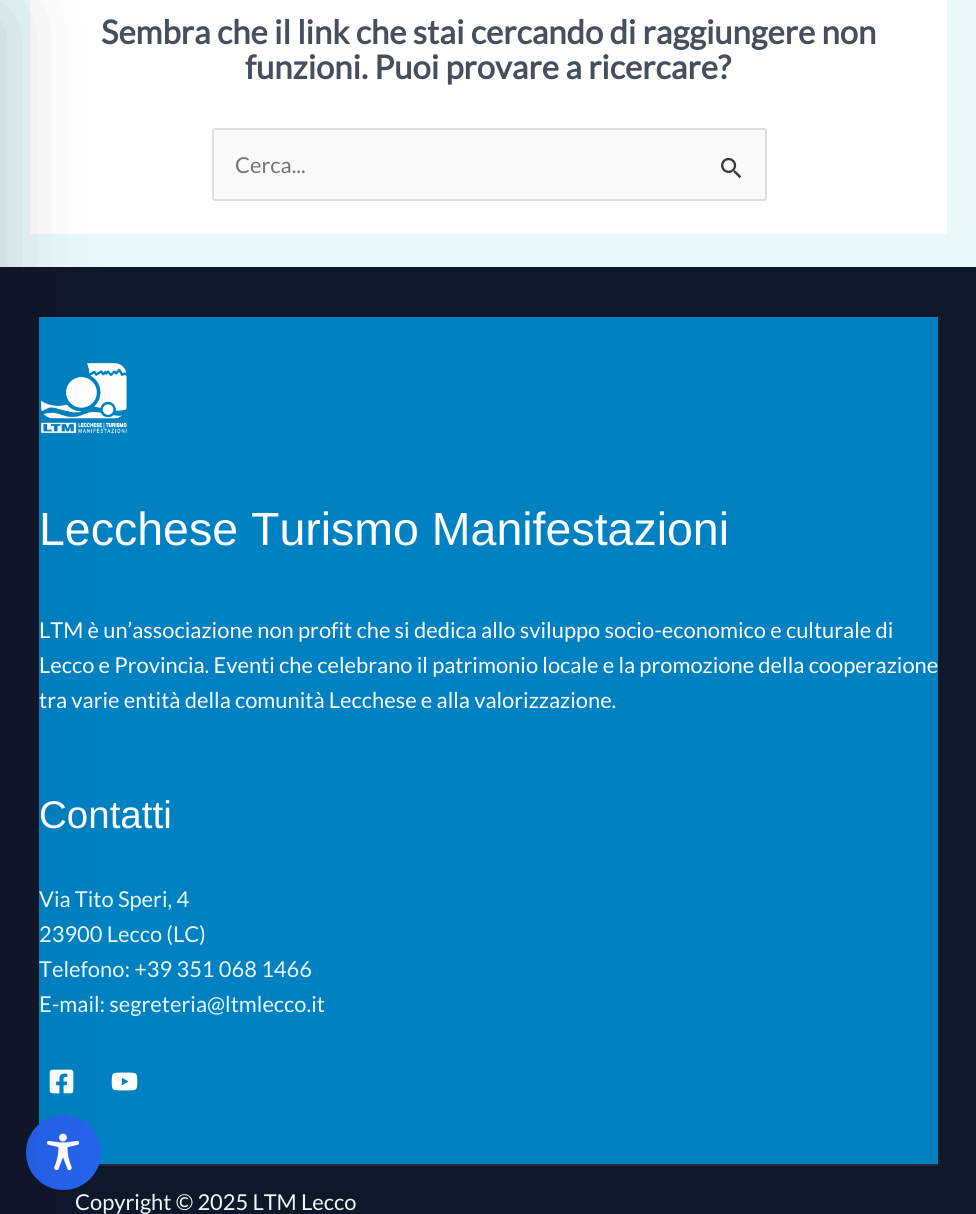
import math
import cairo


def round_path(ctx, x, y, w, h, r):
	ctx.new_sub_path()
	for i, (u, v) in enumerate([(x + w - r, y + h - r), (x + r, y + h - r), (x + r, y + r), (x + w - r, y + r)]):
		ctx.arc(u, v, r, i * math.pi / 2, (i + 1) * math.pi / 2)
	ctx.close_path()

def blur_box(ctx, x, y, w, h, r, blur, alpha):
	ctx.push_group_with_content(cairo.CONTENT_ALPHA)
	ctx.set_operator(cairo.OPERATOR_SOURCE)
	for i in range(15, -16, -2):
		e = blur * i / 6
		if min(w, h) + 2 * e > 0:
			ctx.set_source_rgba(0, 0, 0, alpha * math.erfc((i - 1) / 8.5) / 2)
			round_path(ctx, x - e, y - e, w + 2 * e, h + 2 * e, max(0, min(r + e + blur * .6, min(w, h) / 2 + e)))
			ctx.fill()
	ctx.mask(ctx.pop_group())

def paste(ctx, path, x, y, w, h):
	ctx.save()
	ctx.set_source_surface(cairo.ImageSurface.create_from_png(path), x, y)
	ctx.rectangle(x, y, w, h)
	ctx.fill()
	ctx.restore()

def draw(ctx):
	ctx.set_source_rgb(0.914, 0.973, 0.976)
	ctx.paint()
	ctx.set_source_rgb(1, 1, 1)
	ctx.rectangle(30, 0, 917, 234)
	ctx.fill()
	ctx.set_source_rgb(0.059, 0.09, 0.165)
	ctx.rectangle(0, 267, 976, 947)
	ctx.fill()
	ctx.set_source_rgb(0, 0.506, 0.761)
	ctx.rectangle(39, 317, 899, 847)
	ctx.fill()
	paste(ctx, 'media/2.png', 41, 363, 86, 71)
	paste(ctx, 'media/3.png', 49, 1069, 25, 25)
	paste(ctx, 'media/4.png', 111, 1072, 27, 19)
	ctx.set_source_rgb(0.133, 0.165, 0.231)
	ctx.rectangle(98, 1164, 840, 2)
	ctx.fill()
	ctx.set_source_rgb(0.145, 0.388, 0.922)
	ctx.arc(63.5, 1152.5, 37.5, 0, 2 * math.pi)
	ctx.fill()
	paste(ctx, 'media/5.png', 46, 1133, 34, 38)
	ctx.set_source_rgb(0, 0, 0)
	blur_box(ctx, -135, 15, 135, 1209, 0, 45, 0.2)
	ctx.select_font_face('Lato', cairo.FONT_SLANT_NORMAL, cairo.FONT_WEIGHT_BOLD)
	ctx.set_font_size(32.8)
	ctx.set_source_rgb(0.271, 0.31, 0.369)
	ctx.move_to(101, 44)
	ctx.show_text('Sembra che il link che stai cercando di raggiungere non')
	ctx.move_to(245, 79)
	ctx.show_text('funzioni. Puoi provare a ricercare?')
	ctx.set_source_rgb(0.98, 0.98, 0.98)
	round_path(ctx, 213, 129, 553, 71, 2)
	ctx.fill_preserve()
	ctx.set_source_rgb(0.867, 0.867, 0.867)
	ctx.stroke()
	ctx.save()
	ctx.rectangle(236, 152, 456, 25)
	ctx.clip()
	ctx.select_font_face('Lato')
	ctx.set_font_size(21.9)
	ctx.set_source_rgb(0.459, 0.459, 0.459)
	ctx.move_to(235, 173)
	ctx.show_text('Cerca...')
	ctx.restore()
	paste(ctx, 'media/1.png', 721, 157, 20, 22)
	ctx.select_font_face('Liberation Sans')
	ctx.set_font_size(46.5)
	ctx.set_source_rgb(1, 1, 1)
	ctx.move_to(39, 545)
	ctx.show_text('Lecchese Turismo Manifestazioni')
	ctx.select_font_face('Lato')
	ctx.set_font_size(21.9)
	for x, y, s in [
		(39, 638, 'LTM è un’associazione non profit che si dedica allo sviluppo socio-economico e culturale di'),
		(39, 673, 'Lecco e Provincia. Eventi che celebrano il patrimonio locale e la promozione della cooperazione'),
		(39, 708, 'tra varie entità della comunità Lecchese e alla valorizzazione.'),
	]:
		ctx.move_to(x, y)
		ctx.show_text(s)
	ctx.select_font_face('Liberation Sans')
	ctx.set_font_size(38.5)
	ctx.move_to(39, 828)
	ctx.show_text('Contatti')
	ctx.select_font_face('Lato')
	ctx.set_font_size(21.9)
	ctx.set_source_rgb(0.914, 0.973, 0.976)
	for x, y, s in [
		(39, 907, 'Via Tito Speri, 4'),
		(39, 942, '23900 Lecco (LC)'),
		(39, 977, 'Telefono: +39 351 068 1466'),
		(39, 1012, 'E-mail: segreteria@ltmlecco.it'),
		(75, 1210, 'Copyright © 2025 LTM Lecco'),
	]:
		ctx.move_to(x, y)
		ctx.show_text(s)


surface = cairo.ImageSurface(cairo.FORMAT_RGB24, 976, 1214)
ctx = cairo.Context(surface)
options = cairo.FontOptions()
options.set_hint_metrics(cairo.HINT_METRICS_OFF)
options.set_hint_style(cairo.HINT_STYLE_NONE)
ctx.set_font_options(options)
ctx.set_miter_limit(4)
draw(ctx)
surface.write_to_png('image.png')
